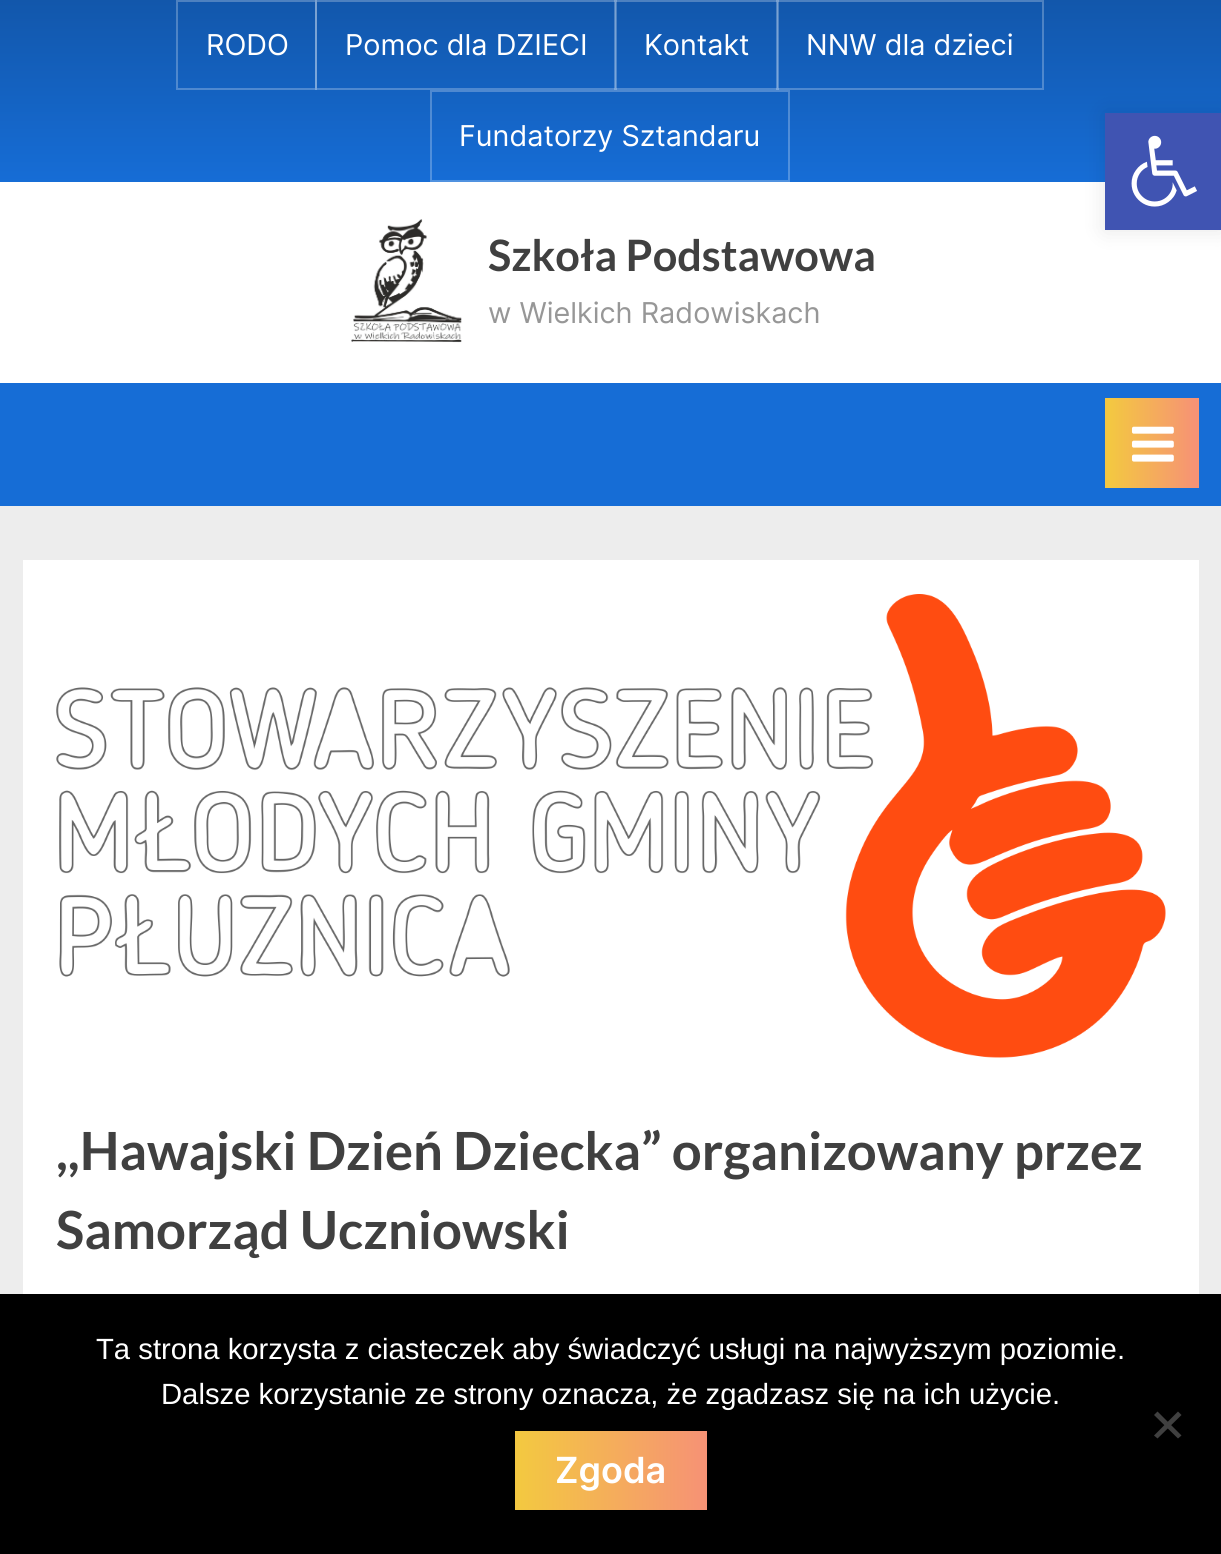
import math
import cairo


def round_path(ctx, x, y, w, h, r):
	ctx.new_sub_path()
	for i, (u, v) in enumerate([(x + w - r, y + h - r), (x + r, y + h - r), (x + r, y + r), (x + w - r, y + r)]):
		ctx.arc(u, v, r, i * math.pi / 2, (i + 1) * math.pi / 2)
	ctx.close_path()

def blur_box(ctx, x, y, w, h, r, blur, alpha):
	ctx.push_group_with_content(cairo.CONTENT_ALPHA)
	ctx.set_operator(cairo.OPERATOR_SOURCE)
	for i in range(15, -16, -2):
		e = blur * i / 6
		if min(w, h) + 2 * e > 0:
			ctx.set_source_rgba(0, 0, 0, alpha * math.erfc((i - 1) / 8.5) / 2)
			round_path(ctx, x - e, y - e, w + 2 * e, h + 2 * e, max(0, min(r + e + blur * .6, min(w, h) / 2 + e)))
			ctx.fill()
	ctx.mask(ctx.pop_group())

def paste(ctx, path, x, y, w, h):
	ctx.save()
	ctx.set_source_surface(cairo.ImageSurface.create_from_png(path), x, y)
	ctx.rectangle(x, y, w, h)
	ctx.fill()
	ctx.restore()

def draw(ctx):
	ctx.set_source_rgb(0.929, 0.929, 0.929)
	ctx.paint()
	gradient = cairo.LinearGradient(611, 182, 611, 0)
	gradient.add_color_stop_rgba(0, 0.086, 0.427, 0.839, 1)
	gradient.add_color_stop_rgba(1, 0.071, 0.341, 0.671, 1)
	ctx.set_source(gradient)
	ctx.rectangle(0, 0, 1221, 182)
	ctx.fill()
	ctx.rectangle(177, 1, 139, 88)
	ctx.set_source_rgba(1, 1, 1, 0.25)
	ctx.stroke()
	ctx.select_font_face('Inter')
	ctx.set_font_size(28.75)
	ctx.set_source_rgb(1, 1, 1)
	ctx.move_to(206, 55)
	ctx.show_text('RODO')
	ctx.rectangle(316, 1, 300, 88)
	ctx.set_source_rgba(1, 1, 1, 0.25)
	ctx.stroke()
	ctx.set_source_rgb(1, 1, 1)
	ctx.move_to(345, 55)
	ctx.show_text('Pomoc dla DZIECI')
	ctx.rectangle(615, 1, 163, 88)
	ctx.set_source_rgba(1, 1, 1, 0.25)
	ctx.stroke()
	ctx.set_source_rgb(1, 1, 1)
	ctx.move_to(644, 55)
	ctx.show_text('Kontakt')
	ctx.rectangle(777, 1, 266, 88)
	ctx.set_source_rgba(1, 1, 1, 0.25)
	ctx.stroke()
	ctx.set_source_rgb(1, 1, 1)
	ctx.move_to(806, 55)
	ctx.show_text('NNW dla dzieci')
	ctx.rectangle(431, 91, 358, 90)
	ctx.set_source_rgba(1, 1, 1, 0.25)
	ctx.stroke()
	ctx.set_source_rgb(1, 1, 1)
	ctx.move_to(459, 146)
	ctx.show_text('Fundatorzy Sztandaru')
	ctx.rectangle(0, 182, 1221, 201)
	ctx.fill()
	paste(ctx, 'media/1.png', 351, 219, 111, 124)
	ctx.select_font_face('Lato', cairo.FONT_SLANT_NORMAL, cairo.FONT_WEIGHT_BOLD)
	ctx.set_font_size(43.25)
	ctx.set_source_rgb(0.251, 0.251, 0.251)
	ctx.move_to(488, 271)
	ctx.show_text('Szkoła Podstawowa')
	ctx.select_font_face('Inter')
	ctx.set_font_size(28.75)
	ctx.set_source_rgb(0.592, 0.592, 0.592)
	ctx.move_to(488, 323)
	ctx.show_text('w Wielkich Radowiskach')
	ctx.set_source_rgb(0.086, 0.427, 0.839)
	ctx.rectangle(0, 383, 1221, 123)
	ctx.fill()
	gradient = cairo.LinearGradient(938, 443, 1109, 443)
	gradient.add_color_stop_rgba(0, 0.953, 0.784, 0.255, 1)
	gradient.add_color_stop_rgba(0.51, 0.965, 0.573, 0.459, 1)
	gradient.add_color_stop_rgba(1, 0.953, 0.784, 0.255, 1)
	ctx.set_source(gradient)
	ctx.rectangle(1105, 398, 4, 90)
	ctx.fill()
	gradient = cairo.LinearGradient(1109, 443, 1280, 443)
	gradient.add_color_stop_rgba(0, 0.953, 0.784, 0.255, 1)
	gradient.add_color_stop_rgba(0.51, 0.965, 0.573, 0.459, 1)
	gradient.add_color_stop_rgba(1, 0.953, 0.784, 0.255, 1)
	ctx.set_source(gradient)
	ctx.rectangle(1109, 398, 90, 90)
	ctx.fill()
	paste(ctx, 'media/2.png', 1131, 426, 43, 36)
	ctx.set_source_rgb(1, 1, 1)
	ctx.rectangle(23, 560, 1176, 734)
	ctx.fill()
	paste(ctx, 'media/3.png', 56, 594, 1110, 464)
	ctx.select_font_face('Lato', cairo.FONT_SLANT_NORMAL, cairo.FONT_WEIGHT_BOLD)
	ctx.set_font_size(52.6)
	ctx.set_source_rgb(0.251, 0.251, 0.251)
	ctx.move_to(56, 1170)
	ctx.show_text(',,Hawajski Dzień Dziecka” organizowany przez')
	ctx.move_to(56, 1249)
	ctx.show_text('Samorząd Uczniowski')
	ctx.set_source_rgb(0, 0, 0)
	blur_box(ctx, 1105, 113, 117, 117, 0, 11, 0.1)
	ctx.set_source_rgb(0.251, 0.329, 0.698)
	ctx.rectangle(1105, 113, 116, 117)
	ctx.fill()
	paste(ctx, 'media/4.png', 1131, 135, 66, 72)
	ctx.set_source_rgb(0, 0, 0)
	ctx.rectangle(0, 1294, 1221, 260)
	ctx.fill()
	ctx.select_font_face('Liberation Sans')
	ctx.set_font_size(29.25)
	ctx.set_source_rgb(1, 1, 1)
	ctx.move_to(96, 1359)
	ctx.show_text('Ta strona korzysta z ciasteczek aby świadczyć usługi na najwyższym poziomie.')
	ctx.move_to(161, 1404)
	ctx.show_text('Dalsze korzystanie ze strony oznacza, że zgadzasz się na ich użycie.')
	ctx.set_source_rgb(0.251, 0.251, 0.251)
	ctx.new_path()
	ctx.move_to(1178, 1411.5)
	ctx.line_to(1181.5, 1415)
	ctx.line_to(1157.5, 1438.5)
	ctx.line_to(1154, 1435.5)
	ctx.close_path()
	ctx.fill()
	ctx.new_path()
	ctx.move_to(1154, 1415)
	ctx.line_to(1157.5, 1411.5)
	ctx.line_to(1181.5, 1435.5)
	ctx.line_to(1178, 1438.5)
	ctx.close_path()
	ctx.fill()
	gradient = cairo.LinearGradient(155, 1470, 520, 1470)
	gradient.add_color_stop_rgba(0, 0.953, 0.784, 0.255, 1)
	gradient.add_color_stop_rgba(0.51, 0.965, 0.573, 0.459, 1)
	gradient.add_color_stop_rgba(1, 0.953, 0.784, 0.255, 1)
	ctx.set_source(gradient)
	ctx.rectangle(515, 1431, 5, 79)
	ctx.fill()
	gradient = cairo.LinearGradient(520, 1470, 884, 1470)
	gradient.add_color_stop_rgba(0, 0.953, 0.784, 0.255, 1)
	gradient.add_color_stop_rgba(0.51, 0.965, 0.573, 0.459, 1)
	gradient.add_color_stop_rgba(1, 0.953, 0.784, 0.255, 1)
	ctx.set_source(gradient)
	ctx.rectangle(520, 1431, 187, 79)
	ctx.fill()
	ctx.select_font_face('Inter SemiBold')
	ctx.set_font_size(36)
	ctx.set_source_rgb(1, 1, 1)
	ctx.move_to(555, 1483)
	ctx.show_text('Zgoda')


surface = cairo.ImageSurface(cairo.FORMAT_RGB24, 1221, 1554)
ctx = cairo.Context(surface)
options = cairo.FontOptions()
options.set_hint_metrics(cairo.HINT_METRICS_OFF)
options.set_hint_style(cairo.HINT_STYLE_NONE)
ctx.set_font_options(options)
ctx.set_miter_limit(4)
draw(ctx)
surface.write_to_png('image.png')
